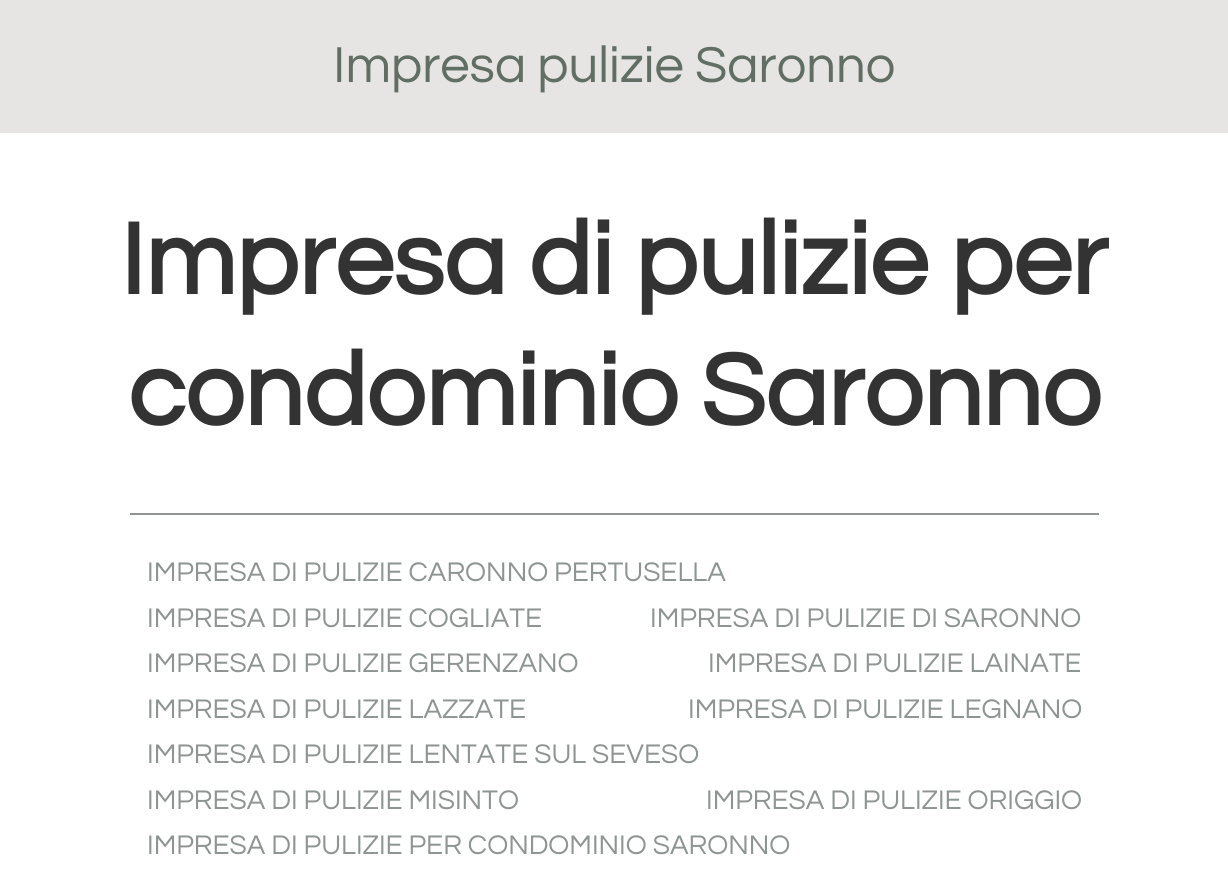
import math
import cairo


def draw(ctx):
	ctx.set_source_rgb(1, 1, 1)
	ctx.paint()
	ctx.set_source_rgb(0.902, 0.898, 0.89)
	ctx.rectangle(0, 0, 1228, 133)
	ctx.fill()
	ctx.select_font_face('Questrial')
	ctx.set_font_size(52.5)
	ctx.set_source_rgb(0.38, 0.431, 0.388)
	ctx.move_to(333, 82)
	ctx.show_text('Impresa pulizie Saronno')
	ctx.select_font_face('Questrial', cairo.FONT_SLANT_NORMAL, cairo.FONT_WEIGHT_BOLD)
	ctx.set_font_size(105)
	ctx.set_source_rgb(0.2, 0.2, 0.2)
	ctx.move_to(120, 294)
	ctx.show_text('Impresa di pulizie per')
	ctx.move_to(128, 425)
	ctx.show_text('condominio Saronno')
	ctx.set_source_rgb(0.557, 0.58, 0.573)
	ctx.rectangle(130, 513, 969, 2)
	ctx.fill()
	ctx.select_font_face('Questrial')
	ctx.set_font_size(28)
	for x, y, s in [
		(147, 581, 'IMPRESA DI PULIZIE CARONNO PERTUSELLA'),
		(147, 627, 'IMPRESA DI PULIZIE COGLIATE'),
		(650, 627, 'IMPRESA DI PULIZIE DI SARONNO'),
		(147, 672, 'IMPRESA DI PULIZIE GERENZANO'),
		(708, 672, 'IMPRESA DI PULIZIE LAINATE'),
		(147, 718, 'IMPRESA DI PULIZIE LAZZATE'),
		(688, 718, 'IMPRESA DI PULIZIE LEGNANO'),
		(147, 763, 'IMPRESA DI PULIZIE LENTATE SUL SEVESO'),
		(147, 809, 'IMPRESA DI PULIZIE MISINTO'),
		(706, 809, 'IMPRESA DI PULIZIE ORIGGIO'),
		(147, 854, 'IMPRESA DI PULIZIE PER CONDOMINIO SARONNO'),
	]:
		ctx.move_to(x, y)
		ctx.show_text(s)


surface = cairo.ImageSurface(cairo.FORMAT_RGB24, 1228, 871)
ctx = cairo.Context(surface)
options = cairo.FontOptions()
options.set_hint_metrics(cairo.HINT_METRICS_OFF)
options.set_hint_style(cairo.HINT_STYLE_NONE)
ctx.set_font_options(options)
ctx.set_miter_limit(4)
draw(ctx)
surface.write_to_png('image.png')
